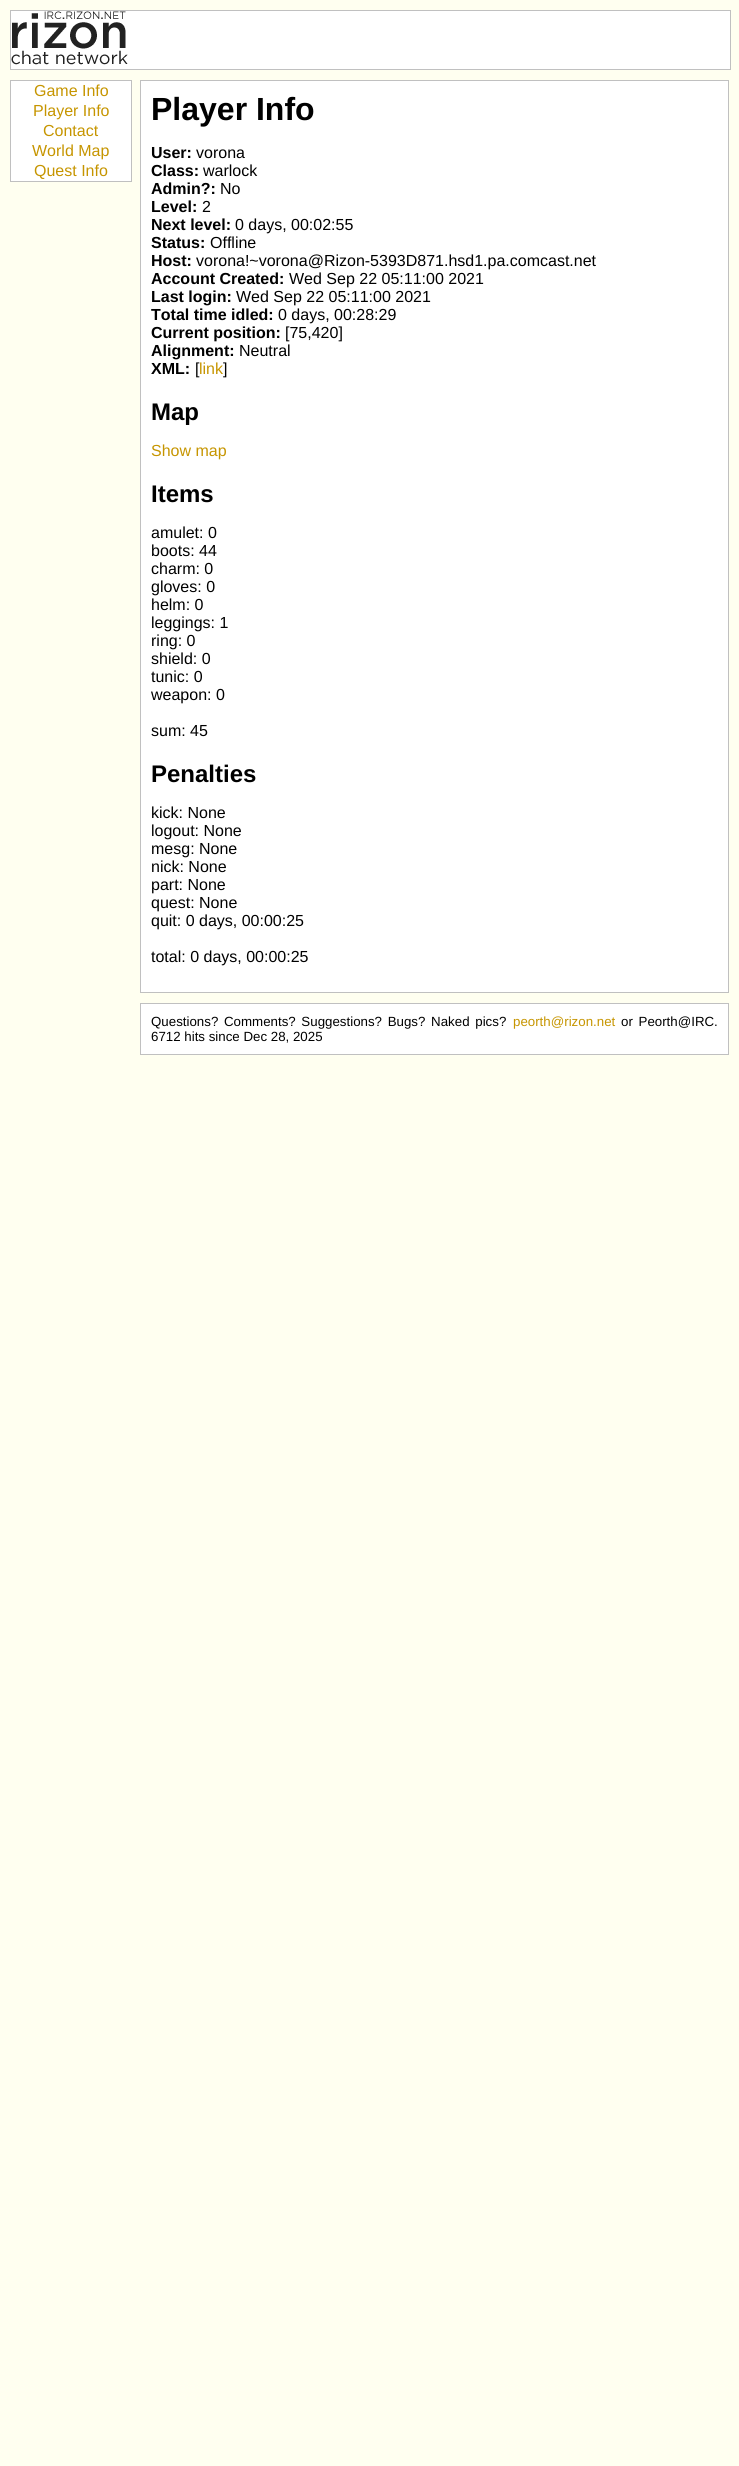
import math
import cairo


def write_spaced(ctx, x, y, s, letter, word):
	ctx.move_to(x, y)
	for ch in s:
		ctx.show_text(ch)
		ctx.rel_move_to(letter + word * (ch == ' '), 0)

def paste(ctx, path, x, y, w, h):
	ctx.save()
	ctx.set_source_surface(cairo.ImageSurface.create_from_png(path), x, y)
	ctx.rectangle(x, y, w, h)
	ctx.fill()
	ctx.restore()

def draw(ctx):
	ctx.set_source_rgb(1, 1, 0.941)
	ctx.paint()
	ctx.set_source_rgb(1, 1, 1)
	ctx.rectangle(10.5, 10.5, 720, 59)
	ctx.fill_preserve()
	ctx.set_source_rgb(0.753, 0.753, 0.753)
	ctx.set_line_width(1)
	ctx.stroke()
	paste(ctx, 'media/1.png', 11, 11, 117, 54)
	ctx.set_source_rgb(1, 1, 1)
	ctx.rectangle(10.5, 80.5, 121, 101)
	ctx.fill_preserve()
	ctx.set_source_rgb(0.753, 0.753, 0.753)
	ctx.stroke()
	ctx.select_font_face('Liberation Sans')
	ctx.set_font_size(16)
	ctx.set_source_rgb(0.776, 0.584, 0)
	for x, y, s in [
		(34, 96, 'Game Info'),
		(33, 116, 'Player Info'),
		(43, 136, 'Contact'),
		(32, 156, 'World Map'),
		(34, 176, 'Quest Info'),
	]:
		ctx.move_to(x, y)
		ctx.show_text(s)
	ctx.set_source_rgb(1, 1, 1)
	ctx.rectangle(140.5, 80.5, 588, 912)
	ctx.fill_preserve()
	ctx.set_source_rgb(0.753, 0.753, 0.753)
	ctx.stroke()
	ctx.select_font_face('Liberation Sans', cairo.FONT_SLANT_NORMAL, cairo.FONT_WEIGHT_BOLD)
	ctx.set_font_size(32)
	ctx.set_source_rgb(0, 0, 0)
	ctx.move_to(151, 120)
	ctx.show_text('Player Info')
	ctx.set_font_size(16)
	ctx.move_to(151, 158)
	ctx.show_text('User:')
	ctx.select_font_face('Liberation Sans')
	ctx.move_to(196, 158)
	ctx.show_text('vorona')
	ctx.select_font_face('Liberation Sans', cairo.FONT_SLANT_NORMAL, cairo.FONT_WEIGHT_BOLD)
	ctx.move_to(151, 176)
	ctx.show_text('Class:')
	ctx.select_font_face('Liberation Sans')
	ctx.move_to(203, 176)
	ctx.show_text('warlock')
	ctx.select_font_face('Liberation Sans', cairo.FONT_SLANT_NORMAL, cairo.FONT_WEIGHT_BOLD)
	ctx.move_to(151, 194)
	ctx.show_text('Admin?:')
	ctx.select_font_face('Liberation Sans')
	ctx.move_to(220, 194)
	ctx.show_text('No')
	ctx.select_font_face('Liberation Sans', cairo.FONT_SLANT_NORMAL, cairo.FONT_WEIGHT_BOLD)
	ctx.move_to(151, 212)
	ctx.show_text('Level:')
	ctx.select_font_face('Liberation Sans')
	ctx.move_to(202, 212)
	ctx.show_text('2')
	ctx.select_font_face('Liberation Sans', cairo.FONT_SLANT_NORMAL, cairo.FONT_WEIGHT_BOLD)
	ctx.move_to(151, 230)
	ctx.show_text('Next level:')
	ctx.select_font_face('Liberation Sans')
	ctx.move_to(235, 230)
	ctx.show_text('0 days, 00:02:55')
	ctx.select_font_face('Liberation Sans', cairo.FONT_SLANT_NORMAL, cairo.FONT_WEIGHT_BOLD)
	ctx.move_to(151, 248)
	ctx.show_text('Status:')
	ctx.select_font_face('Liberation Sans')
	ctx.move_to(210, 248)
	ctx.show_text('Offline')
	ctx.select_font_face('Liberation Sans', cairo.FONT_SLANT_NORMAL, cairo.FONT_WEIGHT_BOLD)
	ctx.move_to(151, 266)
	ctx.show_text('Host:')
	ctx.select_font_face('Liberation Sans')
	ctx.move_to(196, 266)
	ctx.show_text('vorona!~vorona@Rizon-5393D871.hsd1.pa.comcast.net')
	ctx.select_font_face('Liberation Sans', cairo.FONT_SLANT_NORMAL, cairo.FONT_WEIGHT_BOLD)
	ctx.move_to(151, 284)
	ctx.show_text('Account Created:')
	ctx.select_font_face('Liberation Sans')
	ctx.move_to(289, 284)
	ctx.show_text('Wed Sep 22 05:11:00 2021')
	ctx.select_font_face('Liberation Sans', cairo.FONT_SLANT_NORMAL, cairo.FONT_WEIGHT_BOLD)
	ctx.move_to(151, 302)
	ctx.show_text('Last login:')
	ctx.select_font_face('Liberation Sans')
	ctx.move_to(236, 302)
	ctx.show_text('Wed Sep 22 05:11:00 2021')
	ctx.select_font_face('Liberation Sans', cairo.FONT_SLANT_NORMAL, cairo.FONT_WEIGHT_BOLD)
	ctx.move_to(151, 320)
	ctx.show_text('Total time idled:')
	ctx.select_font_face('Liberation Sans')
	ctx.move_to(278, 320)
	ctx.show_text('0 days, 00:28:29')
	ctx.select_font_face('Liberation Sans', cairo.FONT_SLANT_NORMAL, cairo.FONT_WEIGHT_BOLD)
	ctx.move_to(151, 338)
	ctx.show_text('Current position:')
	ctx.select_font_face('Liberation Sans')
	ctx.move_to(285, 338)
	ctx.show_text('[75,420]')
	ctx.select_font_face('Liberation Sans', cairo.FONT_SLANT_NORMAL, cairo.FONT_WEIGHT_BOLD)
	ctx.move_to(151, 356)
	ctx.show_text('Alignment:')
	ctx.select_font_face('Liberation Sans')
	ctx.move_to(239, 356)
	ctx.show_text('Neutral')
	ctx.select_font_face('Liberation Sans', cairo.FONT_SLANT_NORMAL, cairo.FONT_WEIGHT_BOLD)
	ctx.move_to(151, 374)
	ctx.show_text('XML:')
	ctx.select_font_face('Liberation Sans')
	ctx.move_to(195, 374)
	ctx.show_text('[')
	ctx.set_source_rgb(0.776, 0.584, 0)
	ctx.move_to(199, 374)
	ctx.show_text('link')
	ctx.set_source_rgb(0, 0, 0)
	ctx.move_to(223, 374)
	ctx.show_text(']')
	ctx.select_font_face('Liberation Sans', cairo.FONT_SLANT_NORMAL, cairo.FONT_WEIGHT_BOLD)
	ctx.set_font_size(24)
	ctx.move_to(151, 420)
	ctx.show_text('Map')
	ctx.select_font_face('Liberation Sans')
	ctx.set_font_size(16)
	ctx.set_source_rgb(0.776, 0.584, 0)
	ctx.move_to(151, 456)
	ctx.show_text('Show map')
	ctx.select_font_face('Liberation Sans', cairo.FONT_SLANT_NORMAL, cairo.FONT_WEIGHT_BOLD)
	ctx.set_font_size(24)
	ctx.set_source_rgb(0, 0, 0)
	ctx.move_to(151, 502)
	ctx.show_text('Items')
	ctx.select_font_face('Liberation Sans')
	ctx.set_font_size(16)
	for x, y, s in [
		(151, 538, 'amulet: 0'),
		(151, 556, 'boots: 44'),
		(151, 574, 'charm: 0'),
		(151, 592, 'gloves: 0'),
		(151, 610, 'helm: 0'),
		(151, 628, 'leggings: 1'),
		(151, 646, 'ring: 0'),
		(151, 664, 'shield: 0'),
		(151, 682, 'tunic: 0'),
		(151, 700, 'weapon: 0'),
		(151, 736, 'sum: 45'),
	]:
		ctx.move_to(x, y)
		ctx.show_text(s)
	ctx.select_font_face('Liberation Sans', cairo.FONT_SLANT_NORMAL, cairo.FONT_WEIGHT_BOLD)
	ctx.set_font_size(24)
	ctx.move_to(151, 782)
	ctx.show_text('Penalties')
	ctx.select_font_face('Liberation Sans')
	ctx.set_font_size(16)
	for x, y, s in [
		(151, 818, 'kick: None'),
		(151, 836, 'logout: None'),
		(151, 854, 'mesg: None'),
		(151, 872, 'nick: None'),
		(151, 890, 'part: None'),
		(151, 908, 'quest: None'),
		(151, 926, 'quit: 0 days, 00:00:25'),
		(151, 962, 'total: 0 days, 00:00:25'),
	]:
		ctx.move_to(x, y)
		ctx.show_text(s)
	ctx.set_source_rgb(1, 1, 1)
	ctx.rectangle(140.5, 1003.5, 588, 51)
	ctx.fill_preserve()
	ctx.set_source_rgb(0.753, 0.753, 0.753)
	ctx.stroke()
	ctx.set_font_size(13.3)
	ctx.set_source_rgb(0, 0, 0)
	write_spaced(ctx, 151, 1026, 'Questions? Comments? Suggestions? Bugs? Naked pics?', 0, 2)
	ctx.set_source_rgb(0.776, 0.584, 0)
	ctx.move_to(513, 1026)
	ctx.show_text('peorth@rizon.net')
	ctx.set_source_rgb(0, 0, 0)
	write_spaced(ctx, 621, 1026, 'or Peorth@IRC.', 0, 2)
	ctx.move_to(151, 1041)
	ctx.show_text('6712 hits since Dec 28, 2025')


surface = cairo.ImageSurface(cairo.FORMAT_RGB24, 739, 2466)
ctx = cairo.Context(surface)
options = cairo.FontOptions()
options.set_hint_metrics(cairo.HINT_METRICS_OFF)
options.set_hint_style(cairo.HINT_STYLE_NONE)
ctx.set_font_options(options)
ctx.set_miter_limit(4)
draw(ctx)
surface.write_to_png('image.png')
